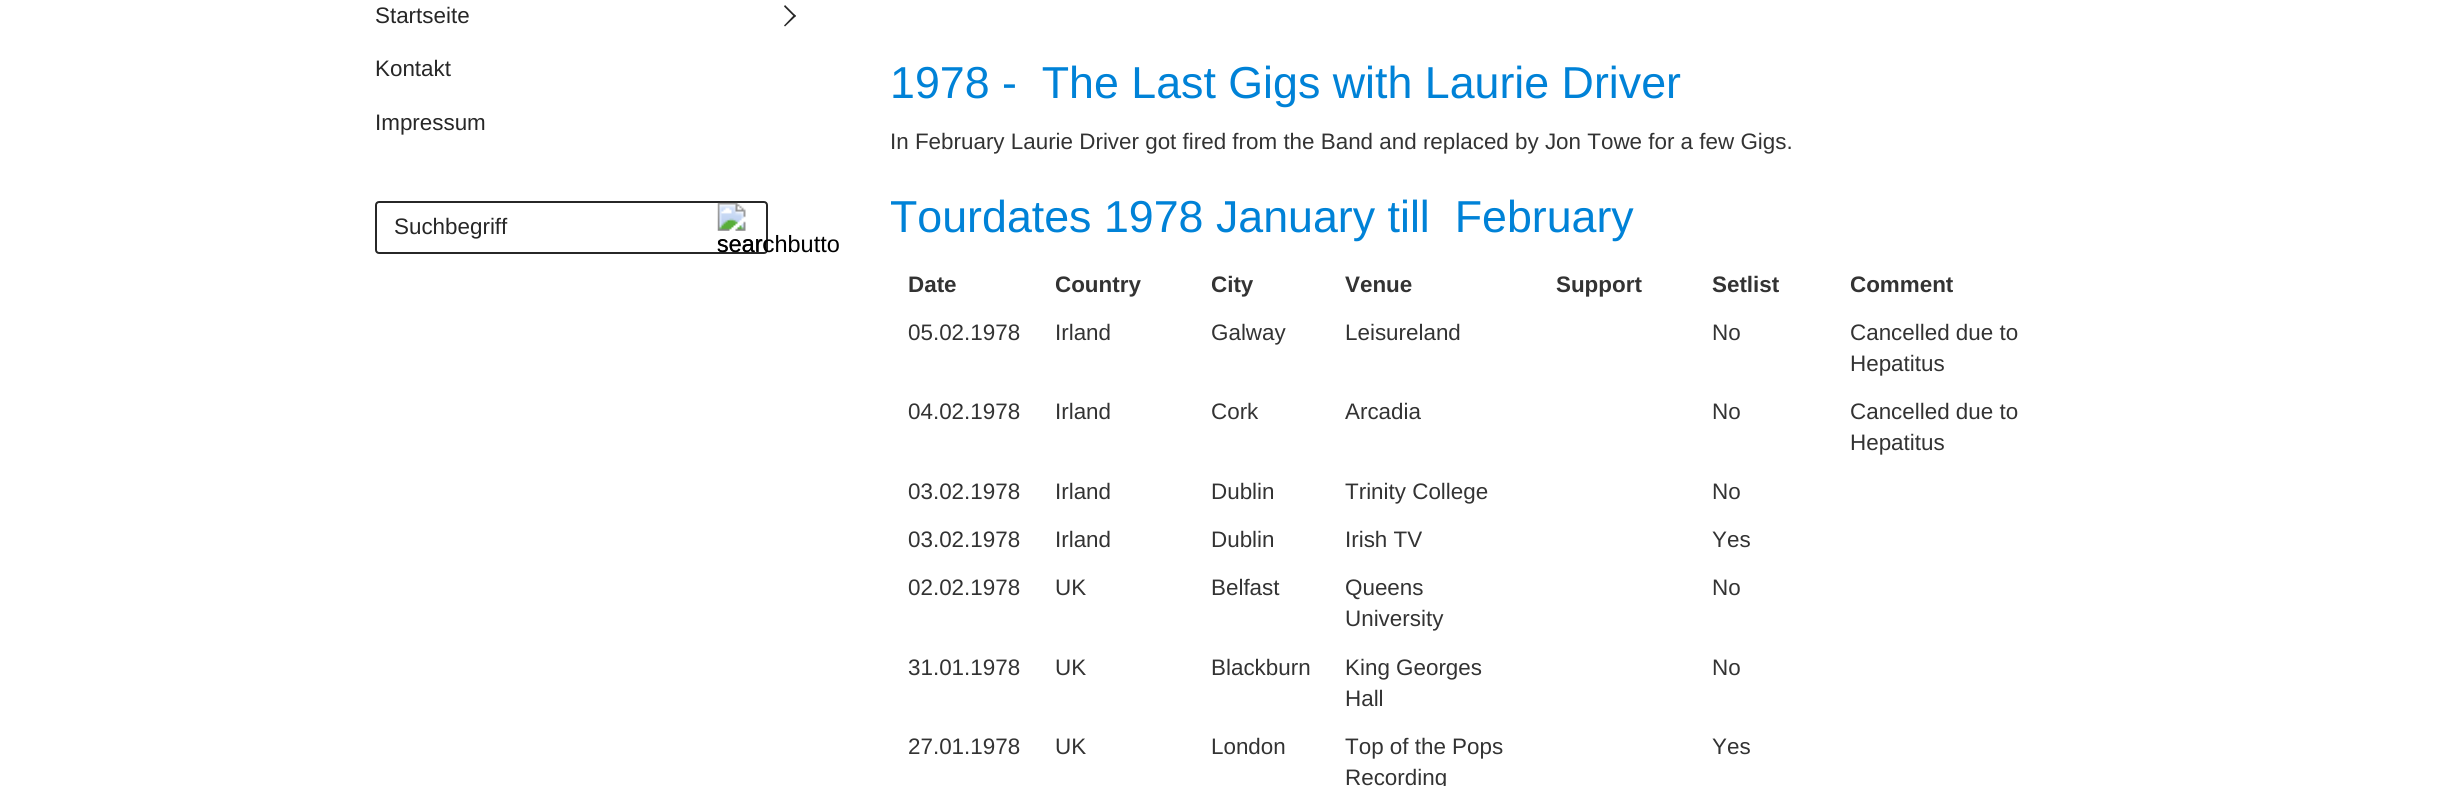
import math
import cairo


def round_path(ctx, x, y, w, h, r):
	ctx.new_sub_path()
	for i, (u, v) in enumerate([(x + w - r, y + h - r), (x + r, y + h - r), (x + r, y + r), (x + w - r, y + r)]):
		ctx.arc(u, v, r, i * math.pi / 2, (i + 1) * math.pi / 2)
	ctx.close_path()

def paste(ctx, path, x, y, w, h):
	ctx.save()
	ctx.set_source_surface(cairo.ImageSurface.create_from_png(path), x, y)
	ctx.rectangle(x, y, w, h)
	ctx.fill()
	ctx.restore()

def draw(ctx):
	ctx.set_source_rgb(1, 1, 1)
	ctx.paint()
	ctx.select_font_face('Liberation Sans')
	ctx.set_font_size(22.4)
	ctx.set_source_rgb(0.153, 0.153, 0.153)
	ctx.move_to(375, 23)
	ctx.show_text('Startseite')
	ctx.new_path()
	ctx.move_to(785, 5)
	ctx.line_to(796, 16)
	ctx.line_to(794.5, 17)
	ctx.line_to(784, 6.5)
	ctx.close_path()
	ctx.fill()
	ctx.new_path()
	ctx.move_to(794.5, 14.5)
	ctx.line_to(796, 16)
	ctx.line_to(785, 26.5)
	ctx.line_to(784, 25.5)
	ctx.close_path()
	ctx.fill()
	ctx.move_to(375, 76)
	ctx.show_text('Kontakt')
	ctx.move_to(375, 130)
	ctx.show_text('Impressum')
	round_path(ctx, 376, 202, 391, 51, 3)
	ctx.stroke()
	ctx.move_to(394, 234)
	ctx.show_text('Suchbegriff')
	paste(ctx, 'media/1.png', 717, 202, 50, 50)
	ctx.set_font_size(23.5)
	ctx.set_source_rgb(0, 0, 0)
	ctx.move_to(717, 252)
	ctx.show_text('searchbutto')
	ctx.set_font_size(44.75)
	ctx.set_source_rgb(0, 0.51, 0.843)
	ctx.move_to(890, 98)
	ctx.show_text('1978 -  The Last Gigs with Laurie Driver')
	ctx.set_font_size(22.4)
	ctx.set_source_rgb(0.2, 0.2, 0.2)
	ctx.move_to(890, 149)
	ctx.show_text('In February Laurie Driver got fired from the Band and replaced by Jon Towe for a few Gigs.')
	ctx.set_font_size(44.75)
	ctx.set_source_rgb(0, 0.51, 0.843)
	ctx.move_to(890, 232)
	ctx.show_text('Tourdates 1978 January till  February')
	ctx.select_font_face('Liberation Sans', cairo.FONT_SLANT_NORMAL, cairo.FONT_WEIGHT_BOLD)
	ctx.set_font_size(22.4)
	ctx.set_source_rgb(0.2, 0.2, 0.2)
	for x, y, s in [
		(908, 292, 'Date'),
		(1055, 292, 'Country'),
		(1211, 292, 'City'),
		(1345, 292, 'Venue'),
		(1556, 292, 'Support'),
		(1712, 292, 'Setlist'),
		(1850, 292, 'Comment'),
	]:
		ctx.move_to(x, y)
		ctx.show_text(s)
	ctx.select_font_face('Liberation Sans')
	for x, y, s in [
		(908, 340, '05.02.1978'),
		(1055, 340, 'Irland'),
		(1211, 340, 'Galway'),
		(1345, 340, 'Leisureland'),
		(1712, 340, 'No'),
		(1850, 340, 'Cancelled due to'),
		(1850, 371, 'Hepatitus'),
		(908, 419, '04.02.1978'),
		(1055, 419, 'Irland'),
		(1211, 419, 'Cork'),
		(1345, 419, 'Arcadia'),
		(1712, 419, 'No'),
		(1850, 419, 'Cancelled due to'),
		(1850, 450, 'Hepatitus'),
		(908, 499, '03.02.1978'),
		(1055, 499, 'Irland'),
		(1211, 499, 'Dublin'),
		(1345, 499, 'Trinity College'),
		(1712, 499, 'No'),
		(908, 547, '03.02.1978'),
		(1055, 547, 'Irland'),
		(1211, 547, 'Dublin'),
		(1345, 547, 'Irish TV'),
		(1712, 547, 'Yes'),
		(908, 595, '02.02.1978'),
		(1055, 595, 'UK'),
		(1211, 595, 'Belfast'),
		(1345, 595, 'Queens'),
		(1345, 626, 'University'),
		(1712, 595, 'No'),
		(908, 675, '31.01.1978'),
		(1055, 675, 'UK'),
		(1211, 675, 'Blackburn'),
		(1345, 675, 'King Georges'),
		(1345, 706, 'Hall'),
		(1712, 675, 'No'),
		(908, 754, '27.01.1978'),
		(1055, 754, 'UK'),
		(1211, 754, 'London'),
		(1345, 754, 'Top of the Pops'),
		(1345, 785, 'Recording'),
		(1712, 754, 'Yes'),
	]:
		ctx.move_to(x, y)
		ctx.show_text(s)


surface = cairo.ImageSurface(cairo.FORMAT_RGB24, 2464, 786)
ctx = cairo.Context(surface)
options = cairo.FontOptions()
options.set_hint_metrics(cairo.HINT_METRICS_OFF)
options.set_hint_style(cairo.HINT_STYLE_NONE)
ctx.set_font_options(options)
ctx.set_miter_limit(4)
draw(ctx)
surface.write_to_png('image.png')
